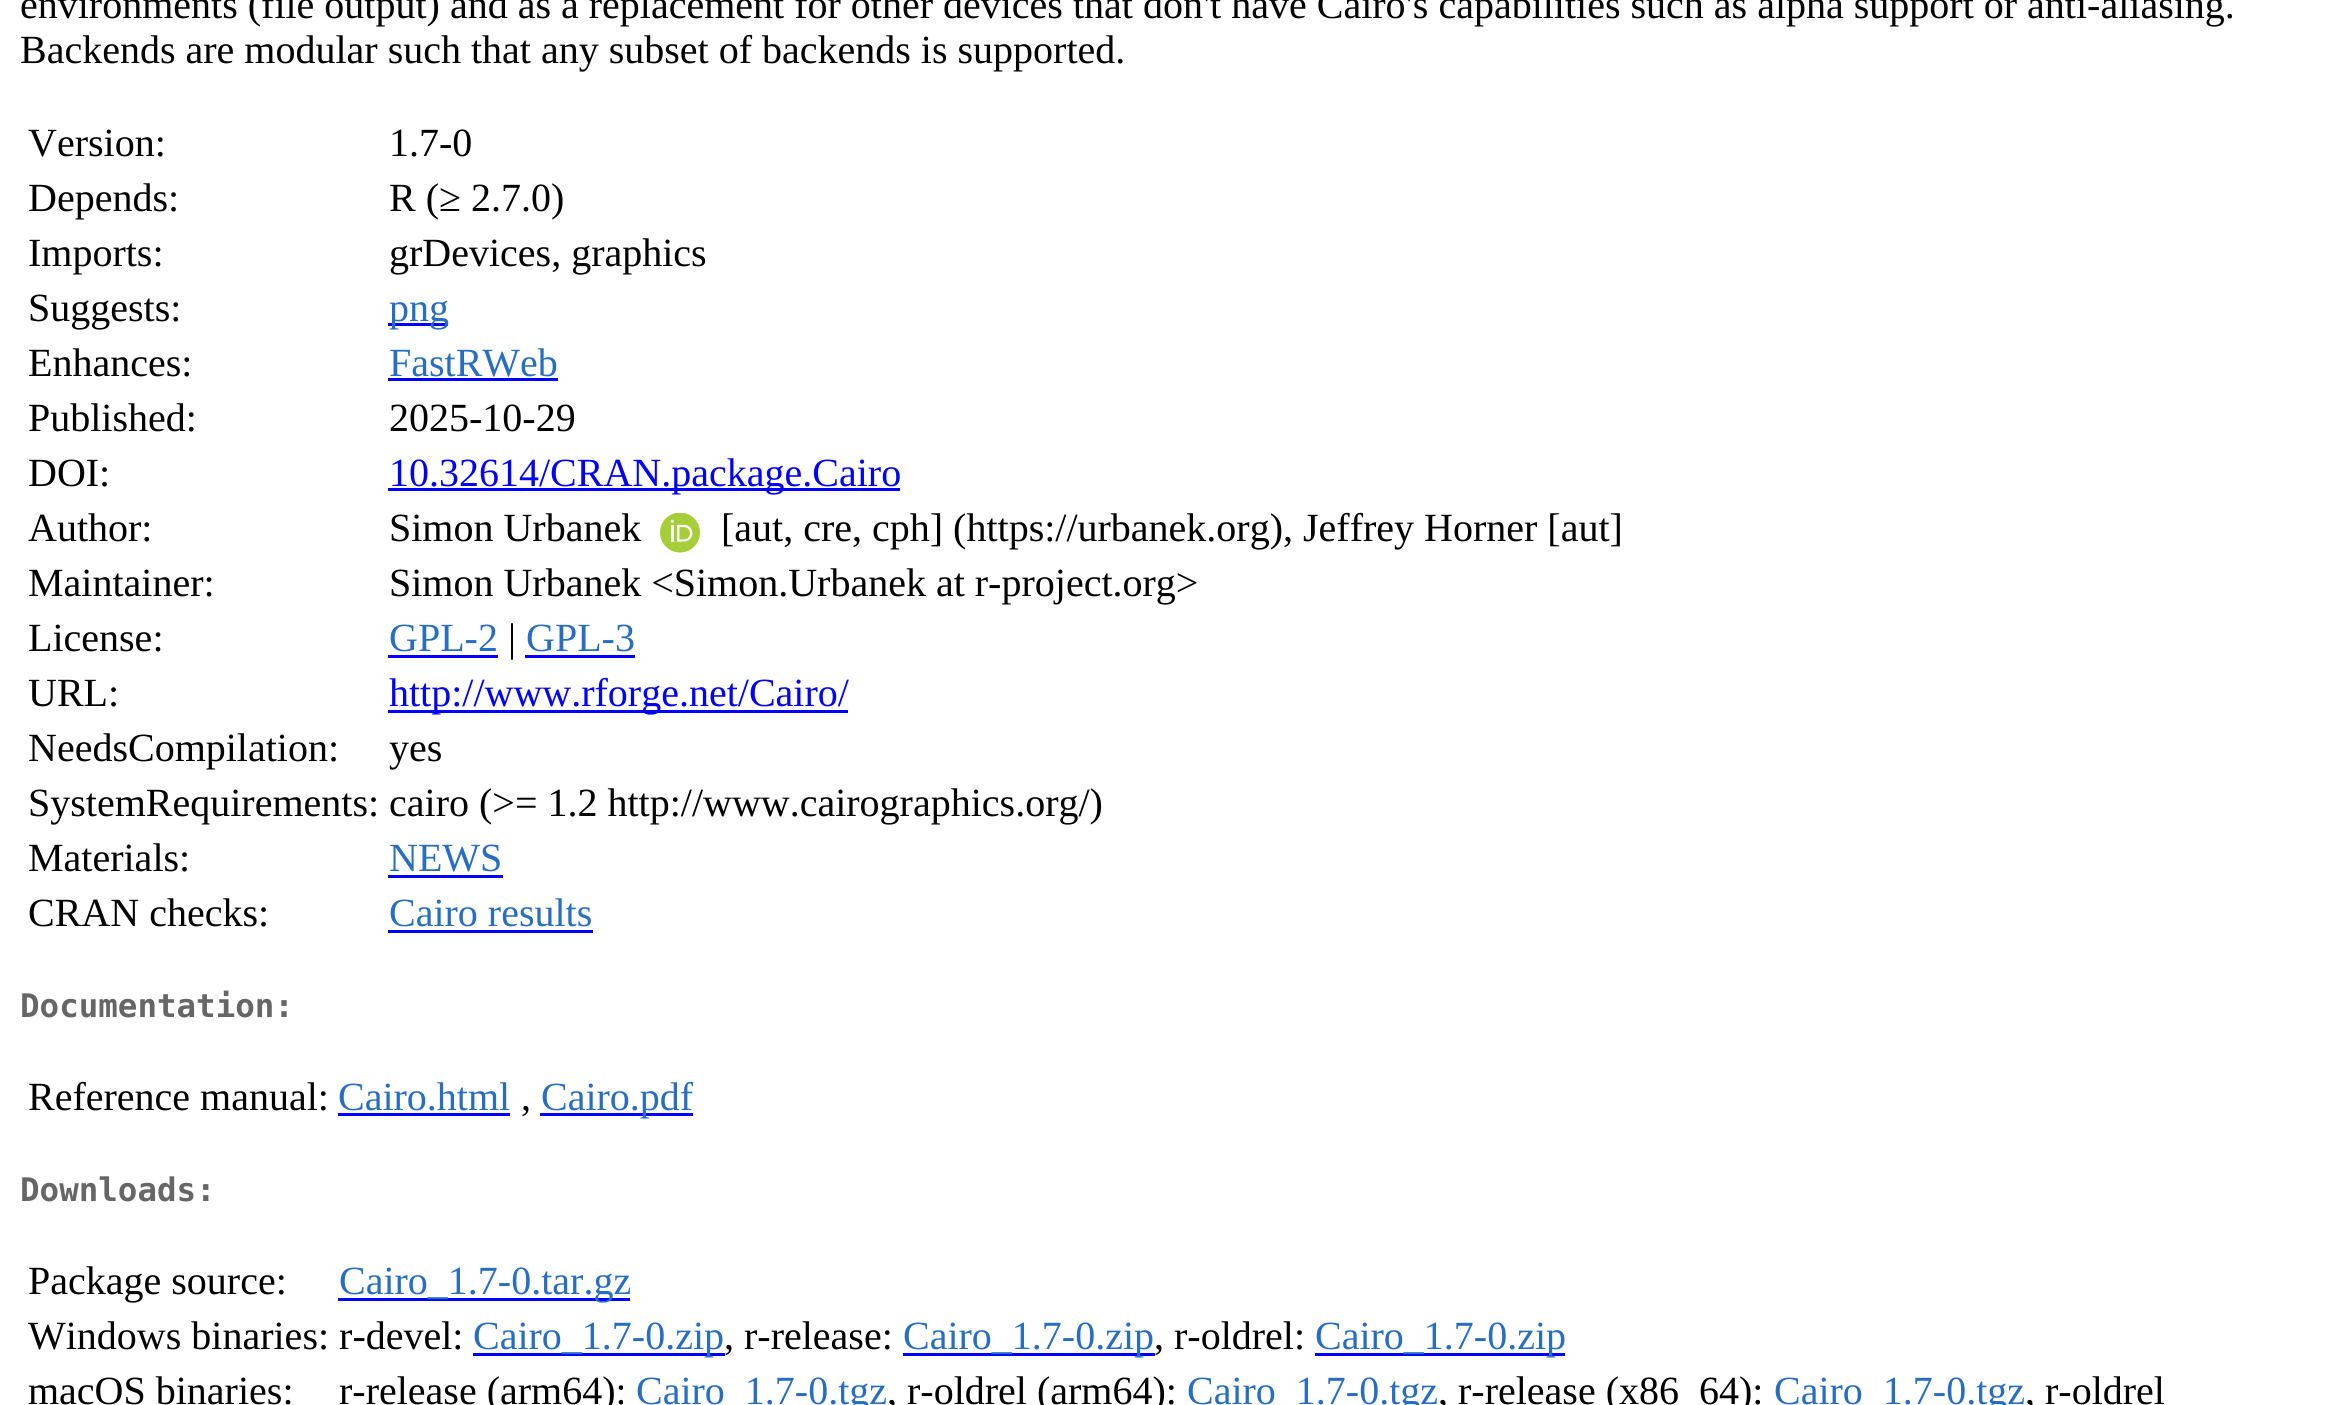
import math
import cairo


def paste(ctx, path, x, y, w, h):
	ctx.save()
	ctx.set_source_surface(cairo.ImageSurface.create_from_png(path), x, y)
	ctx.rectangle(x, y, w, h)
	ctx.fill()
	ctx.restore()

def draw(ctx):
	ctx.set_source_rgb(1, 1, 1)
	ctx.paint()
	ctx.select_font_face('Liberation Serif')
	ctx.set_font_size(40)
	ctx.set_source_rgb(0, 0, 0)
	for x, y, s in [
		(20, 18, 'environments (file output) and as a replacement for other devices that don\'t have Cairo\'s capabilities such as alpha support or anti-aliasing.'),
		(20, 63, 'Backends are modular such that any subset of backends is supported.'),
		(28, 156, 'Version:'),
		(389, 156, '1.7-0'),
		(28, 211, 'Depends:'),
		(389, 211, 'R (≥ 2.7.0)'),
		(28, 266, 'Imports:'),
		(389, 266, 'grDevices, graphics'),
		(28, 321, 'Suggests:'),
	]:
		ctx.move_to(x, y)
		ctx.show_text(s)
	ctx.set_source_rgb(0, 0, 1)
	ctx.rectangle(388, 323, 60, 3)
	ctx.fill()
	ctx.set_source_rgb(0.153, 0.427, 0.765)
	ctx.move_to(389, 321)
	ctx.show_text('png')
	ctx.set_source_rgb(0, 0, 0)
	ctx.move_to(28, 376)
	ctx.show_text('Enhances:')
	ctx.set_source_rgb(0.153, 0.427, 0.765)
	ctx.move_to(389, 376)
	ctx.show_text('FastRWeb')
	ctx.set_source_rgb(0, 0, 1)
	ctx.rectangle(388, 378, 170, 3)
	ctx.fill()
	ctx.set_source_rgb(0, 0, 0)
	for x, y, s in [
		(28, 431, 'Published:'),
		(389, 431, '2025-10-29'),
		(28, 486, 'DOI:'),
	]:
		ctx.move_to(x, y)
		ctx.show_text(s)
	ctx.set_source_rgb(0, 0, 1)
	ctx.rectangle(388, 488, 512, 3)
	ctx.fill()
	ctx.move_to(389, 486)
	ctx.show_text('10.32614/CRAN.package.Cairo')
	ctx.set_source_rgb(0, 0, 0)
	ctx.move_to(28, 541)
	ctx.show_text('Author:')
	ctx.move_to(389, 541)
	ctx.show_text('Simon Urbanek')
	paste(ctx, 'media/1.png', 660, 513, 40, 40)
	for x, y, s in [
		(721, 541, '[aut, cre, cph] (https://urbanek.org), Jeffrey Horner [aut]'),
		(28, 596, 'Maintainer:'),
		(389, 596, 'Simon Urbanek <Simon.Urbanek at r-project.org>'),
		(28, 651, 'License:'),
	]:
		ctx.move_to(x, y)
		ctx.show_text(s)
	ctx.set_source_rgb(0.153, 0.427, 0.765)
	ctx.move_to(389, 651)
	ctx.show_text('GPL-2')
	ctx.set_source_rgb(0, 0, 1)
	ctx.rectangle(388, 655, 110, 3)
	ctx.fill()
	ctx.set_source_rgb(0, 0, 0)
	ctx.move_to(508, 651)
	ctx.show_text('|')
	ctx.set_source_rgb(0.153, 0.427, 0.765)
	ctx.move_to(526, 651)
	ctx.show_text('GPL-3')
	ctx.set_source_rgb(0, 0, 1)
	ctx.rectangle(525, 655, 110, 3)
	ctx.fill()
	ctx.set_source_rgb(0, 0, 0)
	ctx.move_to(28, 706)
	ctx.show_text('URL:')
	ctx.set_source_rgb(0, 0, 1)
	ctx.rectangle(388, 710, 460, 3)
	ctx.fill()
	ctx.move_to(389, 706)
	ctx.show_text('http://www.rforge.net/Cairo/')
	ctx.set_source_rgb(0, 0, 0)
	for x, y, s in [
		(28, 761, 'NeedsCompilation:'),
		(389, 761, 'yes'),
		(28, 816, 'SystemRequirements: cairo (>= 1.2 http://www.cairographics.org/)'),
		(28, 871, 'Materials:'),
	]:
		ctx.move_to(x, y)
		ctx.show_text(s)
	ctx.set_source_rgb(0.153, 0.427, 0.765)
	ctx.move_to(389, 871)
	ctx.show_text('NEWS')
	ctx.set_source_rgb(0, 0, 1)
	ctx.rectangle(388, 875, 115, 3)
	ctx.fill()
	ctx.set_source_rgb(0, 0, 0)
	ctx.move_to(28, 926)
	ctx.show_text('CRAN checks:')
	ctx.set_source_rgb(0.153, 0.427, 0.765)
	ctx.move_to(389, 926)
	ctx.show_text('Cairo results')
	ctx.set_source_rgb(0, 0, 1)
	ctx.rectangle(388, 930, 205, 3)
	ctx.fill()
	ctx.select_font_face('DejaVu Sans Mono', cairo.FONT_SLANT_NORMAL, cairo.FONT_WEIGHT_BOLD)
	ctx.set_font_size(32.5)
	ctx.set_source_rgb(0.4, 0.4, 0.4)
	ctx.move_to(20, 1017)
	ctx.show_text('Documentation:')
	ctx.select_font_face('Liberation Serif')
	ctx.set_font_size(40)
	ctx.set_source_rgb(0, 0, 0)
	ctx.move_to(28, 1110)
	ctx.show_text('Reference manual:')
	ctx.set_source_rgb(0.153, 0.427, 0.765)
	ctx.move_to(338, 1110)
	ctx.show_text('Cairo.html')
	ctx.set_source_rgb(0, 0, 1)
	ctx.rectangle(338, 1113, 172, 3)
	ctx.fill()
	ctx.set_source_rgb(0, 0, 0)
	ctx.move_to(521, 1110)
	ctx.show_text(',')
	ctx.set_source_rgb(0, 0, 1)
	ctx.rectangle(540, 1113, 153, 3)
	ctx.fill()
	ctx.set_source_rgb(0.153, 0.427, 0.765)
	ctx.move_to(541, 1110)
	ctx.show_text('Cairo.pdf')
	ctx.select_font_face('DejaVu Sans Mono', cairo.FONT_SLANT_NORMAL, cairo.FONT_WEIGHT_BOLD)
	ctx.set_font_size(32.5)
	ctx.set_source_rgb(0.4, 0.4, 0.4)
	ctx.move_to(20, 1201)
	ctx.show_text('Downloads:')
	ctx.select_font_face('Liberation Serif')
	ctx.set_font_size(40)
	ctx.set_source_rgb(0, 0, 0)
	ctx.move_to(28, 1294)
	ctx.show_text('Package source:')
	ctx.set_source_rgb(0, 0, 1)
	ctx.rectangle(338, 1298, 292, 3)
	ctx.fill()
	ctx.set_source_rgb(0.153, 0.427, 0.765)
	ctx.move_to(339, 1294)
	ctx.show_text('Cairo_1.7-0.tar.gz')
	ctx.set_source_rgb(0, 0, 0)
	ctx.move_to(28, 1349)
	ctx.show_text('Windows binaries: r-devel:')
	ctx.set_source_rgb(0, 0, 1)
	ctx.rectangle(473, 1353, 252, 3)
	ctx.fill()
	ctx.set_source_rgb(0.153, 0.427, 0.765)
	ctx.move_to(473, 1349)
	ctx.show_text('Cairo_1.7-0.zip')
	ctx.set_source_rgb(0, 0, 0)
	ctx.move_to(724, 1349)
	ctx.show_text(', r-release:')
	ctx.set_source_rgb(0, 0, 1)
	ctx.rectangle(903, 1353, 252, 3)
	ctx.fill()
	ctx.set_source_rgb(0.153, 0.427, 0.765)
	ctx.move_to(903, 1349)
	ctx.show_text('Cairo_1.7-0.zip')
	ctx.set_source_rgb(0, 0, 0)
	ctx.move_to(1154, 1349)
	ctx.show_text(', r-oldrel:')
	ctx.set_source_rgb(0, 0, 1)
	ctx.rectangle(1315, 1353, 250, 3)
	ctx.fill()
	ctx.set_source_rgb(0.153, 0.427, 0.765)
	ctx.move_to(1315, 1349)
	ctx.show_text('Cairo_1.7-0.zip')
	ctx.set_source_rgb(0, 0, 0)
	ctx.move_to(28, 1404)
	ctx.show_text('macOS binaries:')
	ctx.move_to(339, 1404)
	ctx.show_text('r-release (arm64):')
	ctx.set_source_rgb(0.153, 0.427, 0.765)
	ctx.move_to(636, 1404)
	ctx.show_text('Cairo_1.7-0.tgz')
	ctx.set_source_rgb(0, 0, 0)
	ctx.move_to(887, 1404)
	ctx.show_text(', r-oldrel (arm64):')
	ctx.set_source_rgb(0.153, 0.427, 0.765)
	ctx.move_to(1187, 1404)
	ctx.show_text('Cairo_1.7-0.tgz')
	ctx.set_source_rgb(0, 0, 0)
	ctx.move_to(1438, 1404)
	ctx.show_text(', r-release (x86_64):')
	ctx.set_source_rgb(0.153, 0.427, 0.765)
	ctx.move_to(1774, 1404)
	ctx.show_text('Cairo_1.7-0.tgz')
	ctx.set_source_rgb(0, 0, 0)
	ctx.move_to(2025, 1404)
	ctx.show_text(', r-oldrel')


surface = cairo.ImageSurface(cairo.FORMAT_RGB24, 2327, 1405)
ctx = cairo.Context(surface)
options = cairo.FontOptions()
options.set_hint_metrics(cairo.HINT_METRICS_OFF)
options.set_hint_style(cairo.HINT_STYLE_NONE)
ctx.set_font_options(options)
ctx.set_miter_limit(4)
draw(ctx)
surface.write_to_png('image.png')
